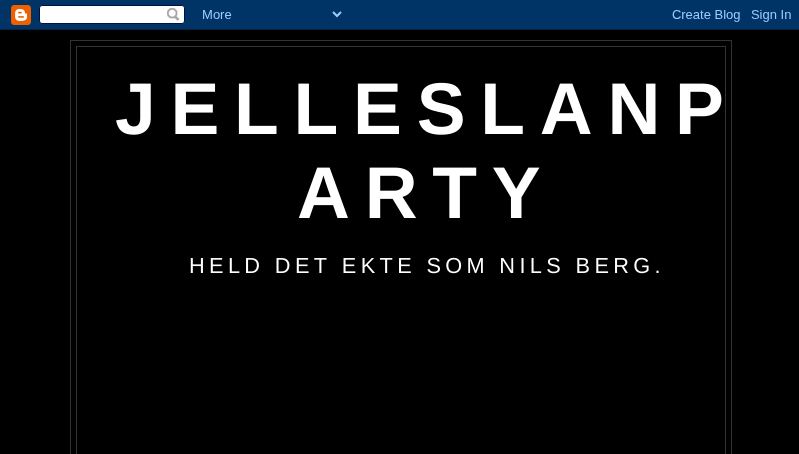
import math
import cairo


def write_spaced(ctx, x, y, s, letter, word):
	ctx.move_to(x, y)
	for ch in s:
		ctx.show_text(ch)
		ctx.rel_move_to(letter + word * (ch == ' '), 0)

def paste(ctx, path, x, y, w, h):
	ctx.save()
	ctx.set_source_surface(cairo.ImageSurface.create_from_png(path), x, y)
	ctx.rectangle(x, y, w, h)
	ctx.fill()
	ctx.restore()

def draw(ctx):
	ctx.set_source_rgb(0, 0, 0)
	ctx.paint()
	paste(ctx, 'media/1.png', 0, 0, 799, 30)
	ctx.rectangle(70.5, 40.5, 661, 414)
	ctx.set_source_rgb(0.2, 0.2, 0.2)
	ctx.set_line_width(1)
	ctx.stroke()
	ctx.rectangle(76.5, 46.5, 649, 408)
	ctx.stroke()
	ctx.select_font_face('Liberation Sans', cairo.FONT_SLANT_NORMAL, cairo.FONT_WEIGHT_BOLD)
	ctx.set_font_size(73.25)
	ctx.set_source_rgb(1, 1, 1)
	write_spaced(ctx, 115, 134, 'JELLESLANP', 14.75, 0)
	write_spaced(ctx, 297, 218, 'ARTY', 14.75, 0)
	ctx.select_font_face('Liberation Sans')
	ctx.set_font_size(21.75)
	write_spaced(ctx, 189, 273, 'HELD DET EKTE SOM NILS BERG.', 4.35, 0)


surface = cairo.ImageSurface(cairo.FORMAT_RGB24, 799, 454)
ctx = cairo.Context(surface)
options = cairo.FontOptions()
options.set_hint_metrics(cairo.HINT_METRICS_OFF)
options.set_hint_style(cairo.HINT_STYLE_NONE)
ctx.set_font_options(options)
ctx.set_miter_limit(4)
draw(ctx)
surface.write_to_png('image.png')
